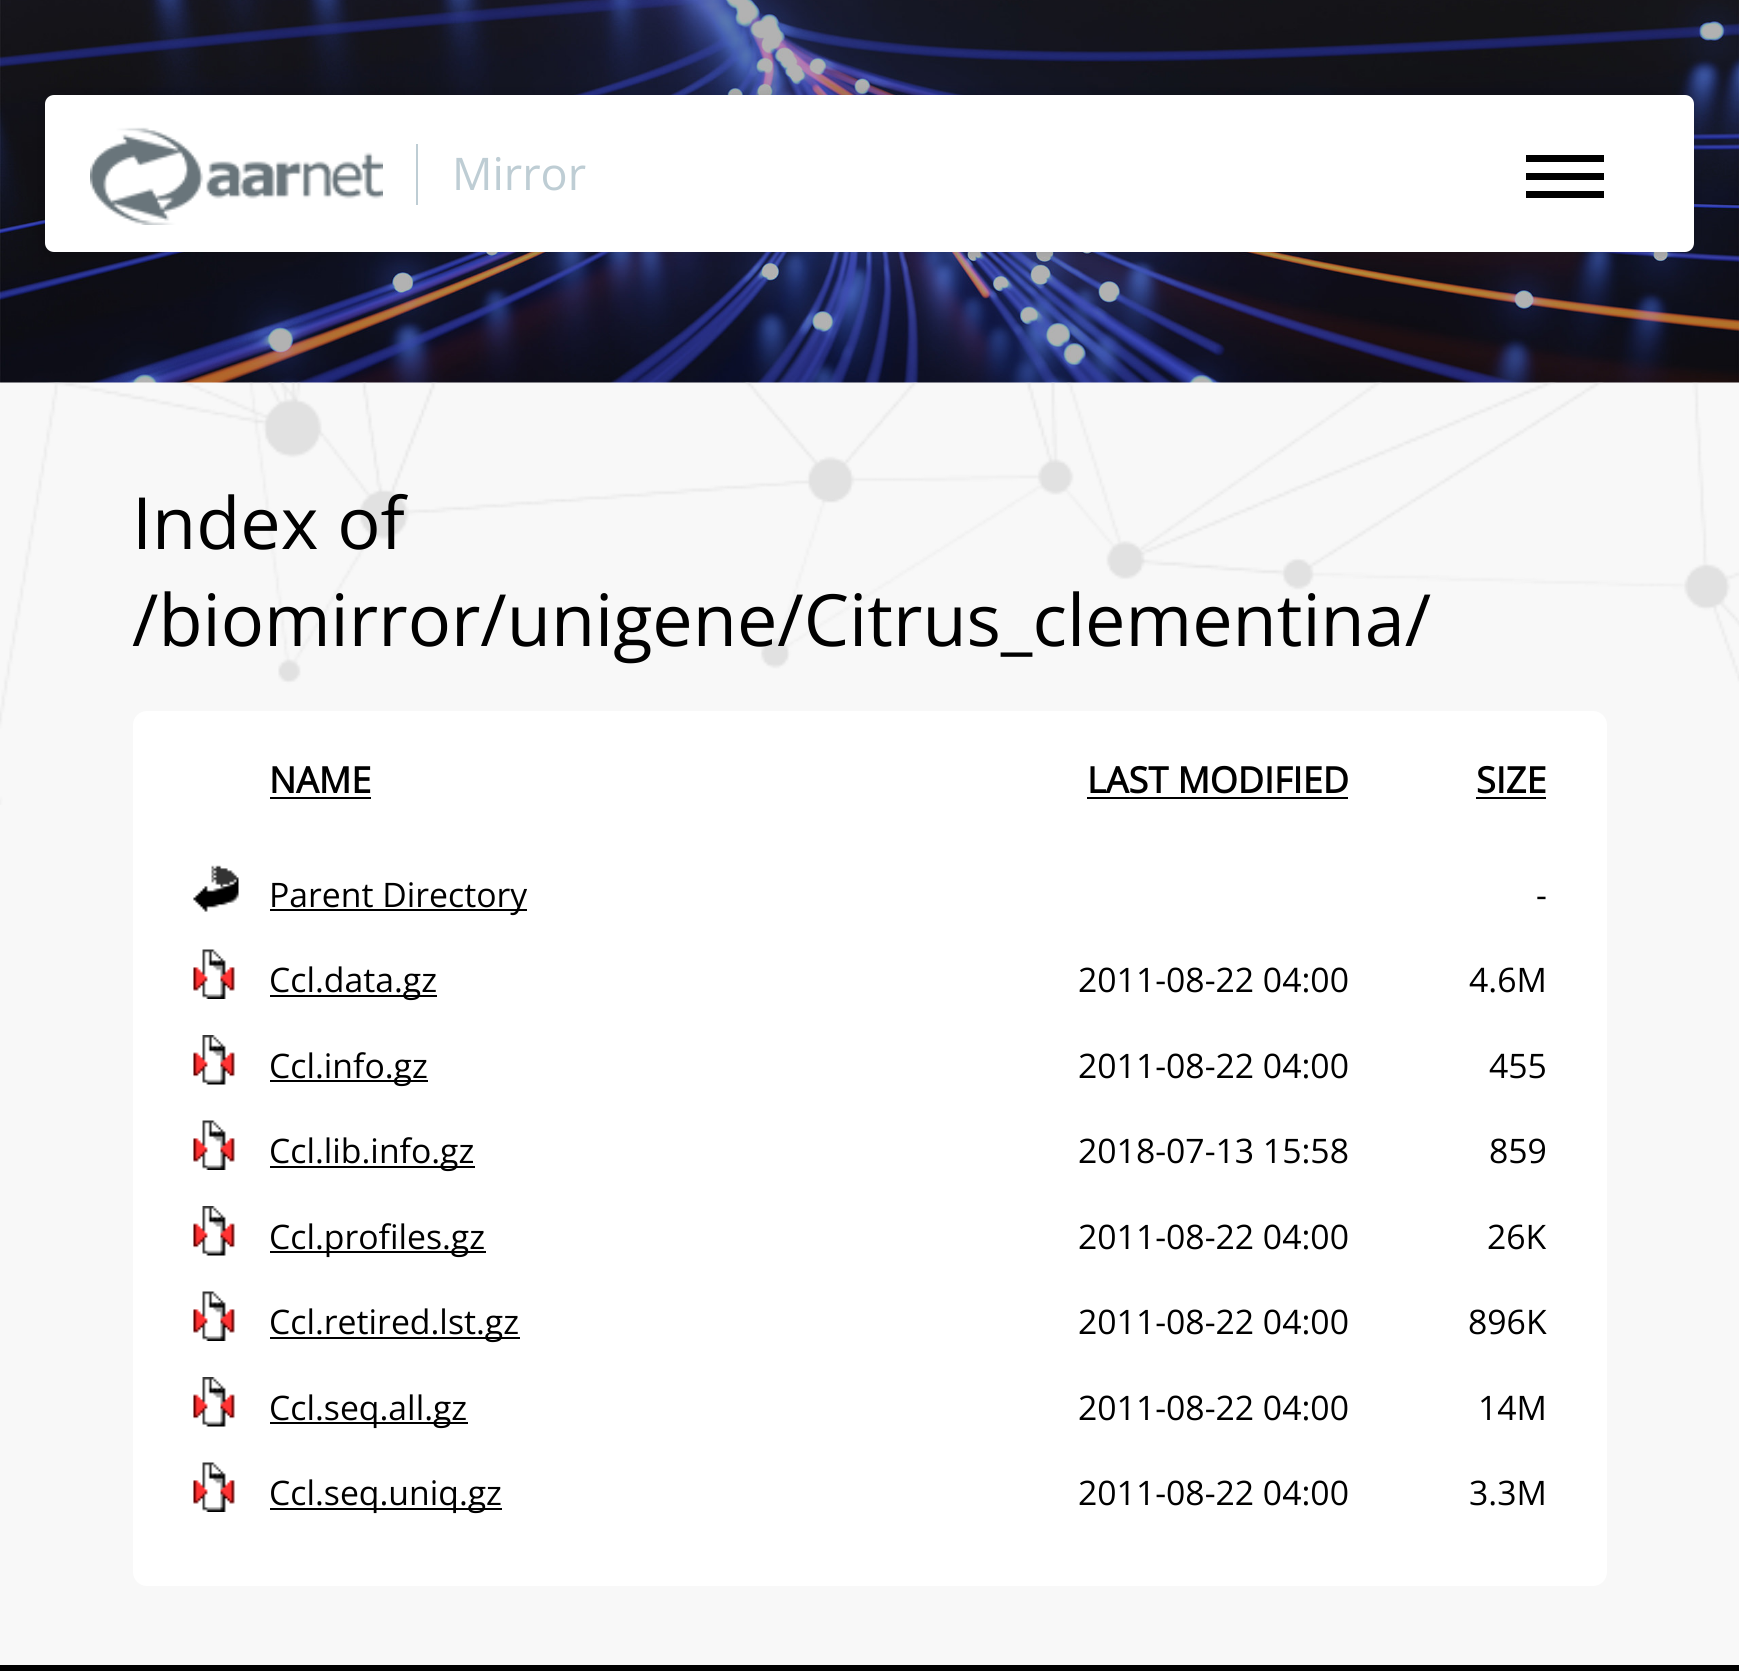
import math
import cairo


def round_path(ctx, x, y, w, h, r):
	ctx.new_sub_path()
	for i, (u, v) in enumerate([(x + w - r, y + h - r), (x + r, y + h - r), (x + r, y + r), (x + w - r, y + r)]):
		ctx.arc(u, v, r, i * math.pi / 2, (i + 1) * math.pi / 2)
	ctx.close_path()

def blur_box(ctx, x, y, w, h, r, blur, alpha):
	ctx.push_group_with_content(cairo.CONTENT_ALPHA)
	ctx.set_operator(cairo.OPERATOR_SOURCE)
	for i in range(15, -16, -2):
		e = blur * i / 6
		if min(w, h) + 2 * e > 0:
			ctx.set_source_rgba(0, 0, 0, alpha * math.erfc((i - 1) / 8.5) / 2)
			round_path(ctx, x - e, y - e, w + 2 * e, h + 2 * e, max(0, min(r + e + blur * .6, min(w, h) / 2 + e)))
			ctx.fill()
	ctx.mask(ctx.pop_group())

def paste(ctx, path, x, y, w, h):
	ctx.save()
	ctx.set_source_surface(cairo.ImageSurface.create_from_png(path), x, y)
	ctx.rectangle(x, y, w, h)
	ctx.fill()
	ctx.restore()

def draw(ctx):
	ctx.set_source_rgb(0.969, 0.969, 0.969)
	ctx.paint()
	paste(ctx, 'media/1.png', 0, 0, 1739, 383)
	ctx.set_source_rgb(0, 0, 0)
	blur_box(ctx, 45, 95, 1649, 157, 9, 9, 0.15)
	ctx.set_source_rgb(1, 1, 1)
	round_path(ctx, 45, 95, 1649, 157, 9)
	ctx.fill()
	paste(ctx, 'media/2.png', 90, 127, 293, 98)
	ctx.set_source_rgb(0.745, 0.804, 0.831)
	ctx.rectangle(416, 144, 2, 61)
	ctx.fill()
	ctx.select_font_face('Open Sans')
	ctx.set_font_size(45)
	ctx.move_to(452, 190)
	ctx.show_text('Mirror')
	ctx.set_source_rgb(0, 0, 0)
	ctx.rectangle(1526, 173, 78, 7)
	ctx.rectangle(1526, 155, 78, 7)
	ctx.rectangle(1526, 191, 78, 7)
	ctx.fill()
	paste(ctx, 'media/3.png', 0, 382, 1739, 423)
	ctx.set_font_size(72)
	ctx.move_to(132, 549)
	ctx.show_text('Index of')
	ctx.move_to(132, 646)
	ctx.show_text('/biomirror/unigene/Citrus_clementina/')
	ctx.set_source_rgb(1, 1, 1)
	round_path(ctx, 133, 711, 1474, 875, 14)
	ctx.fill()
	ctx.select_font_face('Open Sans', cairo.FONT_SLANT_NORMAL, cairo.FONT_WEIGHT_BOLD)
	ctx.set_font_size(36)
	ctx.set_source_rgb(0, 0, 0)
	ctx.move_to(269, 793)
	ctx.show_text('NAME')
	ctx.rectangle(270, 797, 101, 2)
	ctx.fill()
	ctx.move_to(1087, 793)
	ctx.show_text('LAST MODIFIED')
	ctx.rectangle(1087, 797, 261, 2)
	ctx.fill()
	ctx.move_to(1476, 793)
	ctx.show_text('SIZE')
	ctx.rectangle(1476, 797, 70, 2)
	ctx.fill()
	paste(ctx, 'media/4.png', 193, 865, 46, 47)
	ctx.rectangle(270, 909, 257, 2)
	ctx.fill()
	ctx.select_font_face('Open Sans')
	ctx.set_font_size(33.75)
	ctx.move_to(269, 907)
	ctx.show_text('Parent Directory')
	ctx.move_to(1536, 907)
	ctx.show_text('-')
	paste(ctx, 'media/5.png', 193, 949, 42, 50)
	ctx.rectangle(270, 995, 167, 2)
	ctx.fill()
	for x, y, s in [
		(269, 992, 'Ccl.data.gz'),
		(1078, 992, '2011-08-22 04:00'),
		(1469, 992, '4.6M'),
	]:
		ctx.move_to(x, y)
		ctx.show_text(s)
	paste(ctx, 'media/6.png', 193, 1035, 42, 50)
	ctx.rectangle(270, 1080, 158, 2)
	ctx.fill()
	for x, y, s in [
		(269, 1078, 'Ccl.info.gz'),
		(1078, 1078, '2011-08-22 04:00'),
		(1489, 1078, '455'),
	]:
		ctx.move_to(x, y)
		ctx.show_text(s)
	paste(ctx, 'media/7.png', 193, 1120, 42, 50)
	ctx.rectangle(270, 1166, 205, 2)
	ctx.fill()
	for x, y, s in [
		(269, 1163, 'Ccl.lib.info.gz'),
		(1078, 1163, '2018-07-13 15:58'),
		(1489, 1163, '859'),
	]:
		ctx.move_to(x, y)
		ctx.show_text(s)
	paste(ctx, 'media/6.png', 193, 1206, 42, 50)
	ctx.rectangle(270, 1251, 216, 2)
	ctx.fill()
	for x, y, s in [
		(269, 1249, 'Ccl.profiles.gz'),
		(1078, 1249, '2011-08-22 04:00'),
		(1487, 1249, '26K'),
	]:
		ctx.move_to(x, y)
		ctx.show_text(s)
	paste(ctx, 'media/5.png', 193, 1291, 42, 50)
	ctx.rectangle(270, 1337, 250, 2)
	ctx.fill()
	for x, y, s in [
		(269, 1334, 'Ccl.retired.lst.gz'),
		(1078, 1334, '2011-08-22 04:00'),
		(1468, 1334, '896K'),
	]:
		ctx.move_to(x, y)
		ctx.show_text(s)
	paste(ctx, 'media/6.png', 193, 1377, 42, 50)
	ctx.rectangle(270, 1422, 198, 2)
	ctx.fill()
	for x, y, s in [
		(269, 1420, 'Ccl.seq.all.gz'),
		(1078, 1420, '2011-08-22 04:00'),
		(1478, 1420, '14M'),
	]:
		ctx.move_to(x, y)
		ctx.show_text(s)
	paste(ctx, 'media/5.png', 193, 1462, 42, 50)
	ctx.rectangle(270, 1508, 232, 2)
	ctx.fill()
	for x, y, s in [
		(269, 1505, 'Ccl.seq.uniq.gz'),
		(1078, 1505, '2011-08-22 04:00'),
		(1469, 1505, '3.3M'),
	]:
		ctx.move_to(x, y)
		ctx.show_text(s)
	ctx.rectangle(0, 1665, 1739, 6)
	ctx.fill()


surface = cairo.ImageSurface(cairo.FORMAT_RGB24, 1739, 1671)
ctx = cairo.Context(surface)
options = cairo.FontOptions()
options.set_hint_metrics(cairo.HINT_METRICS_OFF)
options.set_hint_style(cairo.HINT_STYLE_NONE)
ctx.set_font_options(options)
ctx.set_miter_limit(4)
draw(ctx)
surface.write_to_png('image.png')
